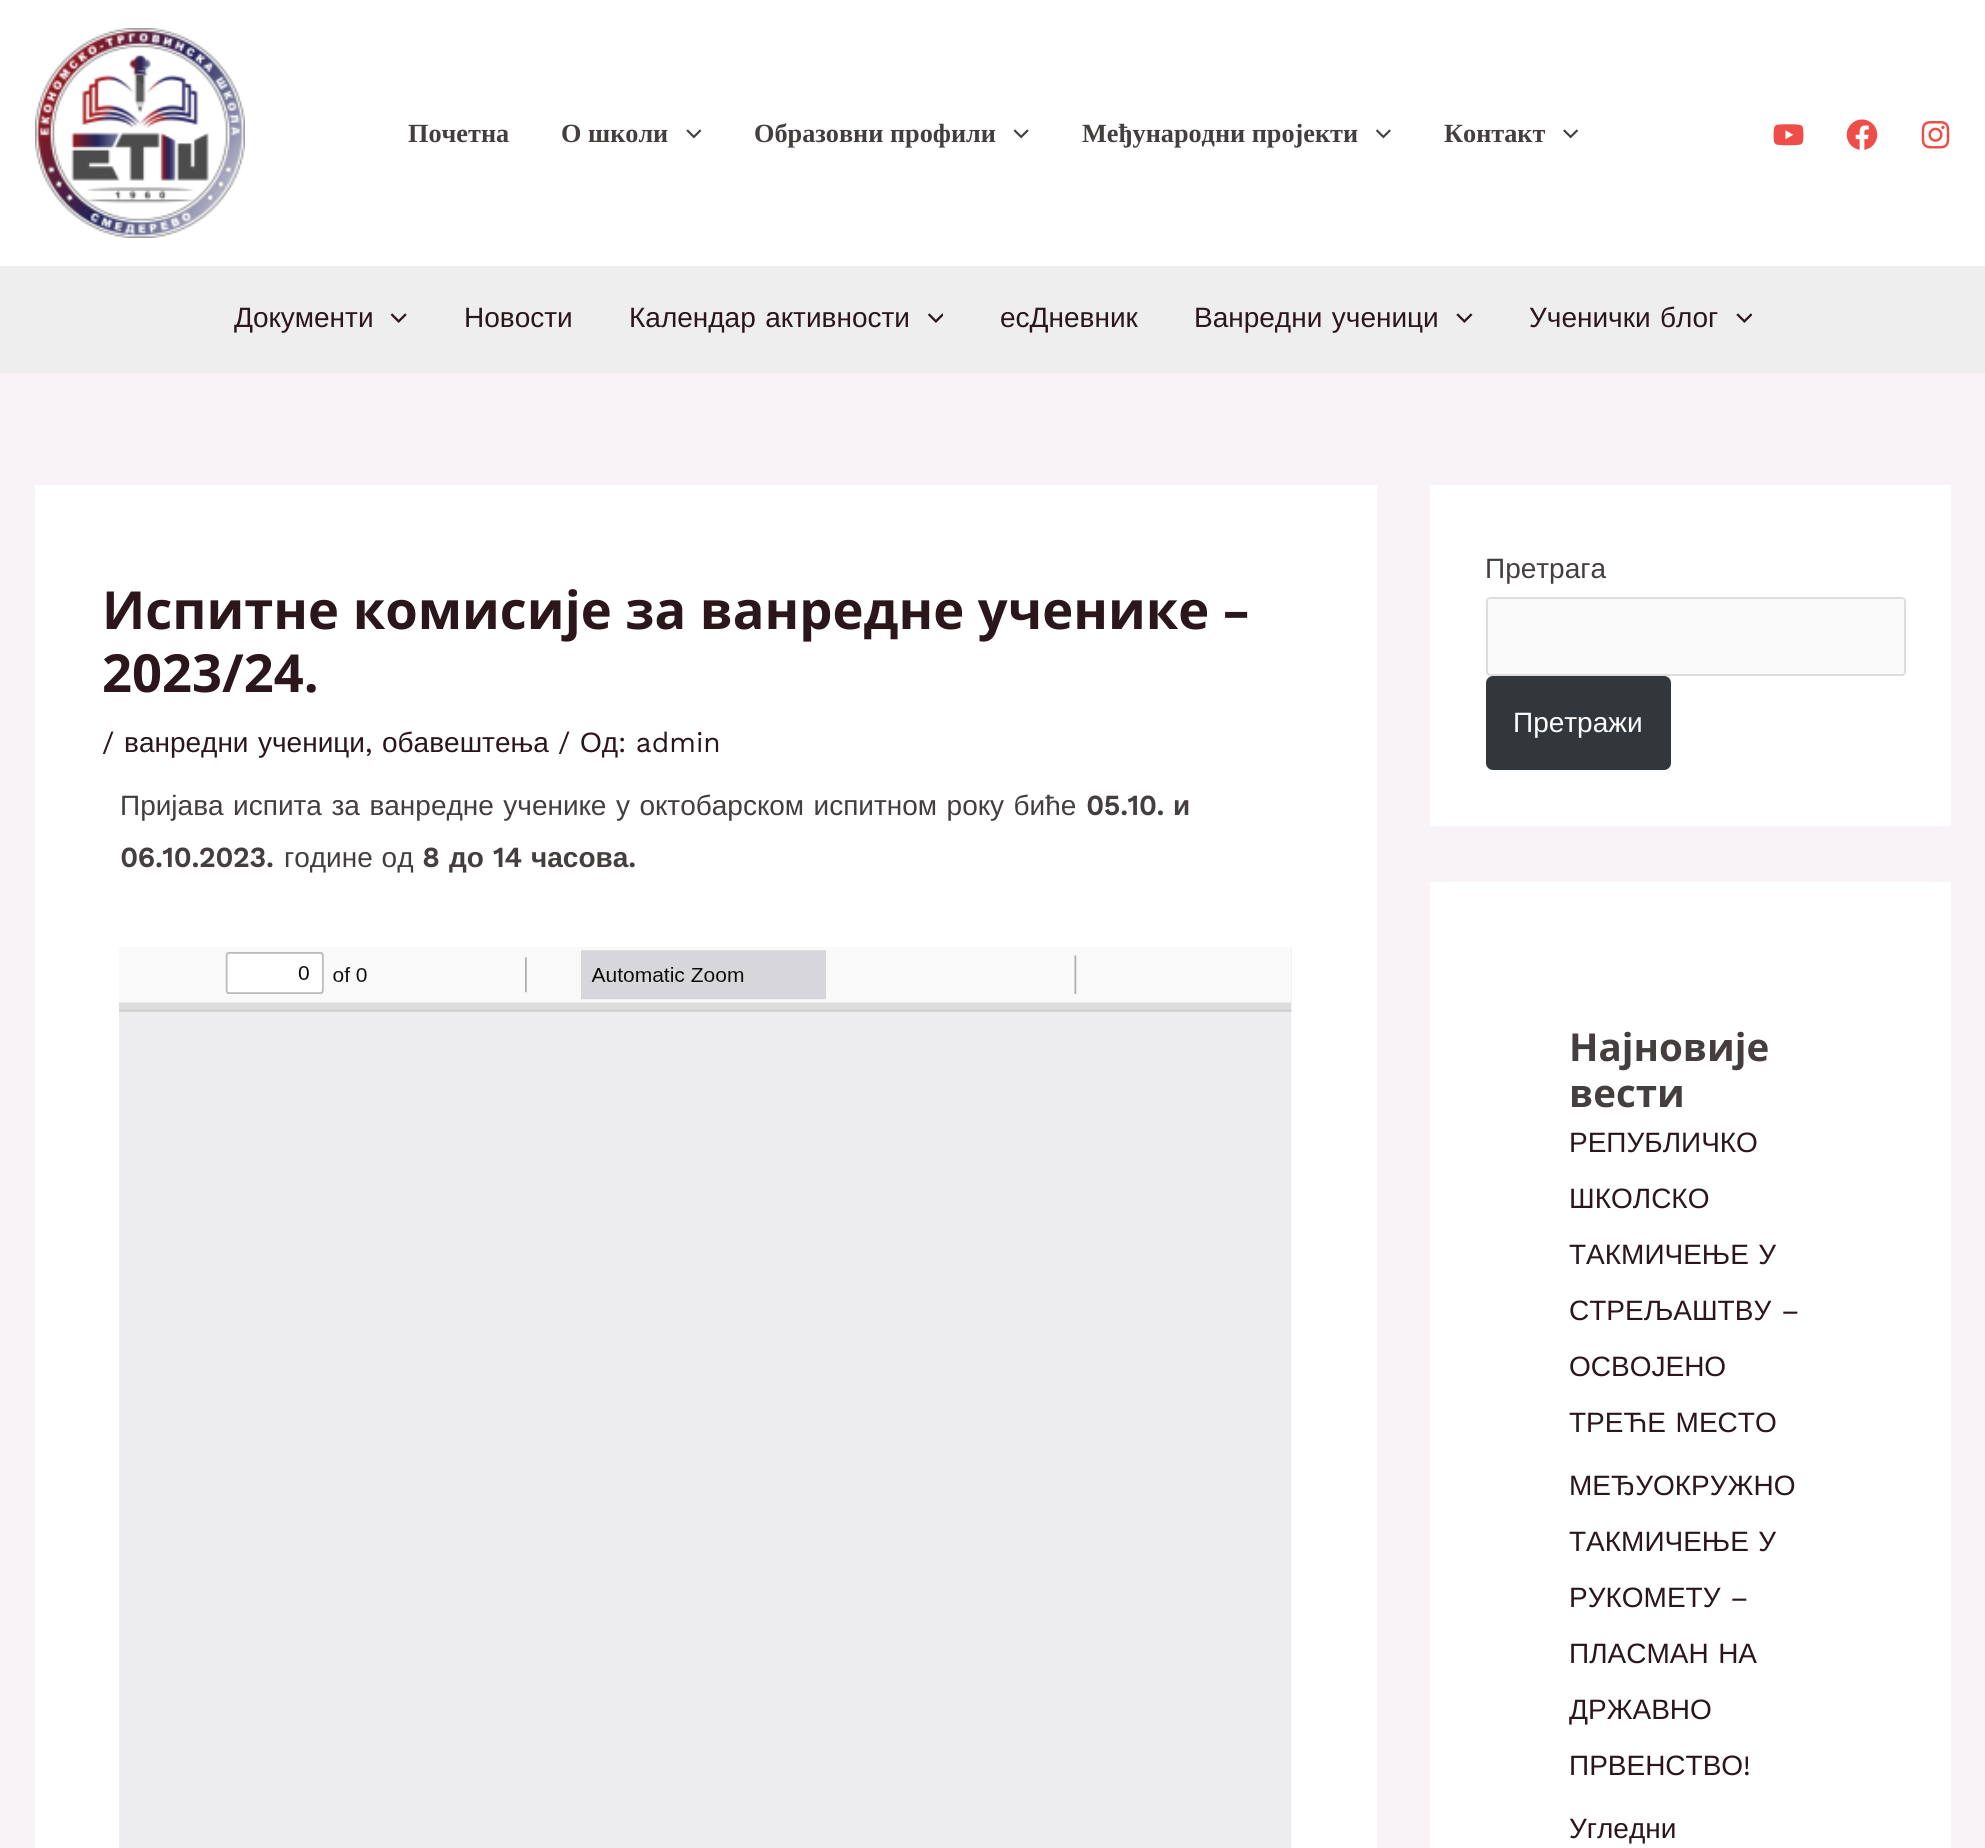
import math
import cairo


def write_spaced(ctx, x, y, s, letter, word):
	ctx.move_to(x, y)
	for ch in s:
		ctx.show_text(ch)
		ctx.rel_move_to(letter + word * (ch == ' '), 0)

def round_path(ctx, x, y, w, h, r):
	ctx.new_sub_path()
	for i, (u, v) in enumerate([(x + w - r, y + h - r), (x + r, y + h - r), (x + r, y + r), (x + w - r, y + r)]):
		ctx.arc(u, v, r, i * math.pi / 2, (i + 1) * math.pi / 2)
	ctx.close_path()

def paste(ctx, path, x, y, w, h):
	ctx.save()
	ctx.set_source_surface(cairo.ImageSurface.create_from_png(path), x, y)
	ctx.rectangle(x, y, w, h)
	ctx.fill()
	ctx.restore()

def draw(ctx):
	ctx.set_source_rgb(0.969, 0.953, 0.961)
	ctx.paint()
	ctx.set_source_rgb(1, 1, 1)
	ctx.rectangle(0, 0, 1985, 266)
	ctx.fill()
	paste(ctx, 'media/1.png', 35, 28, 210, 210)
	ctx.select_font_face('Liberation Serif', cairo.FONT_SLANT_NORMAL, cairo.FONT_WEIGHT_BOLD)
	ctx.set_font_size(26.25)
	ctx.set_source_rgb(0.271, 0.243, 0.243)
	ctx.move_to(408, 142)
	ctx.show_text('Почетна')
	ctx.move_to(561, 142)
	ctx.show_text('О школи')
	paste(ctx, 'media/2.png', 686, 129, 16, 10)
	ctx.move_to(754, 142)
	ctx.show_text('Образовни профили')
	paste(ctx, 'media/3.png', 1013, 129, 16, 10)
	ctx.move_to(1082, 142)
	ctx.show_text('Међународни пројекти')
	paste(ctx, 'media/4.png', 1376, 129, 15, 10)
	ctx.move_to(1444, 142)
	ctx.show_text('Контакт')
	paste(ctx, 'media/5.png', 1563, 129, 16, 10)
	paste(ctx, 'media/6.png', 1773, 124, 31, 22)
	paste(ctx, 'media/7.png', 1846, 119, 32, 31)
	paste(ctx, 'media/8.png', 1921, 120, 29, 29)
	ctx.set_source_rgb(0.933, 0.933, 0.933)
	ctx.rectangle(0, 266, 1985, 105)
	ctx.fill()
	ctx.set_source_rgb(0.918, 0.918, 0.918)
	ctx.rectangle(0, 371, 1985, 2)
	ctx.fill()
	ctx.select_font_face('Liberation Sans')
	ctx.set_font_size(28)
	ctx.set_source_rgb(0.169, 0.086, 0.106)
	ctx.move_to(234, 327)
	ctx.show_text('Документи')
	paste(ctx, 'media/9.png', 390, 313, 17, 10)
	ctx.move_to(464, 327)
	ctx.show_text('Новости')
	write_spaced(ctx, 629, 327, 'Календар активности', 0, 1.75)
	paste(ctx, 'media/10.png', 928, 313, 15, 10)
	ctx.move_to(1000, 327)
	ctx.show_text('есДневник')
	write_spaced(ctx, 1194, 327, 'Ванредни ученици', 0, 1.75)
	paste(ctx, 'media/11.png', 1456, 313, 17, 10)
	write_spaced(ctx, 1529, 327, 'Ученички блог', 0, 1.75)
	paste(ctx, 'media/12.png', 1736, 313, 16, 10)
	ctx.set_source_rgb(1, 1, 1)
	ctx.rectangle(35, 485, 1342, 1363)
	ctx.fill()
	ctx.select_font_face('Open Sans', cairo.FONT_SLANT_NORMAL, cairo.FONT_WEIGHT_BOLD)
	ctx.set_font_size(52.5)
	ctx.set_source_rgb(0.169, 0.086, 0.106)
	ctx.move_to(102, 629)
	ctx.show_text('Испитне комисије за ванредне ученике –')
	ctx.move_to(102, 692)
	ctx.show_text('2023/24.')
	ctx.select_font_face('Work Sans')
	ctx.set_font_size(28)
	ctx.move_to(102, 752)
	ctx.show_text('/')
	ctx.select_font_face('Liberation Sans')
	write_spaced(ctx, 124, 752, 'ванредни ученици', 0, 1.75)
	ctx.select_font_face('Work Sans')
	ctx.move_to(365, 752)
	ctx.show_text(',')
	ctx.select_font_face('Liberation Sans')
	ctx.move_to(382, 752)
	ctx.show_text('обавештења')
	ctx.select_font_face('Work Sans')
	ctx.move_to(558, 752)
	ctx.show_text('/')
	ctx.select_font_face('Liberation Sans')
	ctx.move_to(580, 752)
	ctx.show_text('Од')
	ctx.select_font_face('Work Sans')
	ctx.move_to(618, 752)
	ctx.show_text(': admin')
	ctx.select_font_face('Liberation Sans')
	ctx.set_source_rgb(0.271, 0.243, 0.243)
	write_spaced(ctx, 120, 815, 'Пријава испита за ванредне ученике у октобарском испитном року биће', 0, 1.75)
	ctx.select_font_face('Work Sans', cairo.FONT_SLANT_NORMAL, cairo.FONT_WEIGHT_BOLD)
	ctx.move_to(1086, 815)
	ctx.show_text('05.10.')
	ctx.select_font_face('Liberation Sans', cairo.FONT_SLANT_NORMAL, cairo.FONT_WEIGHT_BOLD)
	ctx.move_to(1173, 815)
	ctx.show_text('и')
	ctx.select_font_face('Work Sans', cairo.FONT_SLANT_NORMAL, cairo.FONT_WEIGHT_BOLD)
	ctx.move_to(120, 867)
	ctx.show_text('06.10.2023.')
	ctx.select_font_face('Liberation Sans')
	write_spaced(ctx, 284, 867, 'године од', 0, 1)
	ctx.select_font_face('Work Sans', cairo.FONT_SLANT_NORMAL, cairo.FONT_WEIGHT_BOLD)
	ctx.move_to(422, 867)
	ctx.show_text('8')
	ctx.select_font_face('Liberation Sans', cairo.FONT_SLANT_NORMAL, cairo.FONT_WEIGHT_BOLD)
	ctx.move_to(449, 867)
	ctx.show_text('до')
	ctx.select_font_face('Work Sans', cairo.FONT_SLANT_NORMAL, cairo.FONT_WEIGHT_BOLD)
	ctx.move_to(493, 867)
	ctx.show_text('14')
	ctx.select_font_face('Liberation Sans', cairo.FONT_SLANT_NORMAL, cairo.FONT_WEIGHT_BOLD)
	ctx.move_to(531, 867)
	ctx.show_text('часова')
	ctx.select_font_face('Work Sans', cairo.FONT_SLANT_NORMAL, cairo.FONT_WEIGHT_BOLD)
	ctx.move_to(628, 867)
	ctx.show_text('.')
	paste(ctx, 'media/13.png', 119, 947, 1173, 901)
	ctx.set_source_rgb(1, 1, 1)
	ctx.rectangle(1430, 485, 521, 341)
	ctx.fill()
	ctx.select_font_face('Liberation Sans')
	ctx.set_source_rgb(0.271, 0.243, 0.243)
	ctx.move_to(1485, 578)
	ctx.show_text('Претрага')
	ctx.set_source_rgb(0.98, 0.98, 0.98)
	round_path(ctx, 1487, 598, 418, 77, 3)
	ctx.fill_preserve()
	ctx.set_source_rgb(0.867, 0.867, 0.867)
	ctx.stroke()
	ctx.set_source_rgb(0.196, 0.216, 0.235)
	round_path(ctx, 1486, 676, 185, 94, 7)
	ctx.fill()
	ctx.set_source_rgb(1, 1, 1)
	ctx.move_to(1513, 732)
	ctx.show_text('Претражи')
	ctx.rectangle(1430, 882, 521, 966)
	ctx.fill()
	ctx.select_font_face('Open Sans', cairo.FONT_SLANT_NORMAL, cairo.FONT_WEIGHT_BOLD)
	ctx.set_font_size(38.5)
	ctx.set_source_rgb(0.271, 0.243, 0.243)
	ctx.move_to(1569, 1061)
	ctx.show_text('Најновије')
	ctx.move_to(1569, 1107)
	ctx.show_text('вести')
	ctx.select_font_face('Liberation Sans')
	ctx.set_font_size(28)
	ctx.set_source_rgb(0.169, 0.086, 0.106)
	ctx.move_to(1569, 1152)
	ctx.show_text('РЕПУБЛИЧКО')
	ctx.move_to(1569, 1208)
	ctx.show_text('ШКОЛСКО')
	write_spaced(ctx, 1569, 1264, 'ТАКМИЧЕЊЕ У', 0, 1.75)
	ctx.move_to(1569, 1320)
	ctx.show_text('СТРЕЉАШТВУ')
	ctx.select_font_face('Work Sans')
	ctx.move_to(1781, 1320)
	ctx.show_text('–')
	ctx.select_font_face('Liberation Sans')
	ctx.move_to(1569, 1376)
	ctx.show_text('ОСВОЈЕНО')
	write_spaced(ctx, 1569, 1432, 'ТРЕЋЕ МЕСТО', 0, 1.75)
	ctx.move_to(1569, 1495)
	ctx.show_text('МЕЂУОКРУЖНО')
	write_spaced(ctx, 1569, 1551, 'ТАКМИЧЕЊЕ У', 0, 1.75)
	ctx.move_to(1569, 1607)
	ctx.show_text('РУКОМЕТУ')
	ctx.select_font_face('Work Sans')
	ctx.move_to(1730, 1607)
	ctx.show_text('–')
	ctx.select_font_face('Liberation Sans')
	write_spaced(ctx, 1569, 1663, 'ПЛАСМАН НА', 0, 1.75)
	ctx.move_to(1569, 1719)
	ctx.show_text('ДРЖАВНО')
	ctx.move_to(1569, 1775)
	ctx.show_text('ПРВЕНСТВО')
	ctx.select_font_face('Work Sans')
	ctx.move_to(1743, 1775)
	ctx.show_text('!')
	ctx.select_font_face('Liberation Sans')
	ctx.move_to(1569, 1838)
	ctx.show_text('Угледни')


surface = cairo.ImageSurface(cairo.FORMAT_RGB24, 1985, 1848)
ctx = cairo.Context(surface)
options = cairo.FontOptions()
options.set_hint_metrics(cairo.HINT_METRICS_OFF)
options.set_hint_style(cairo.HINT_STYLE_NONE)
ctx.set_font_options(options)
ctx.set_miter_limit(4)
draw(ctx)
surface.write_to_png('image.png')
